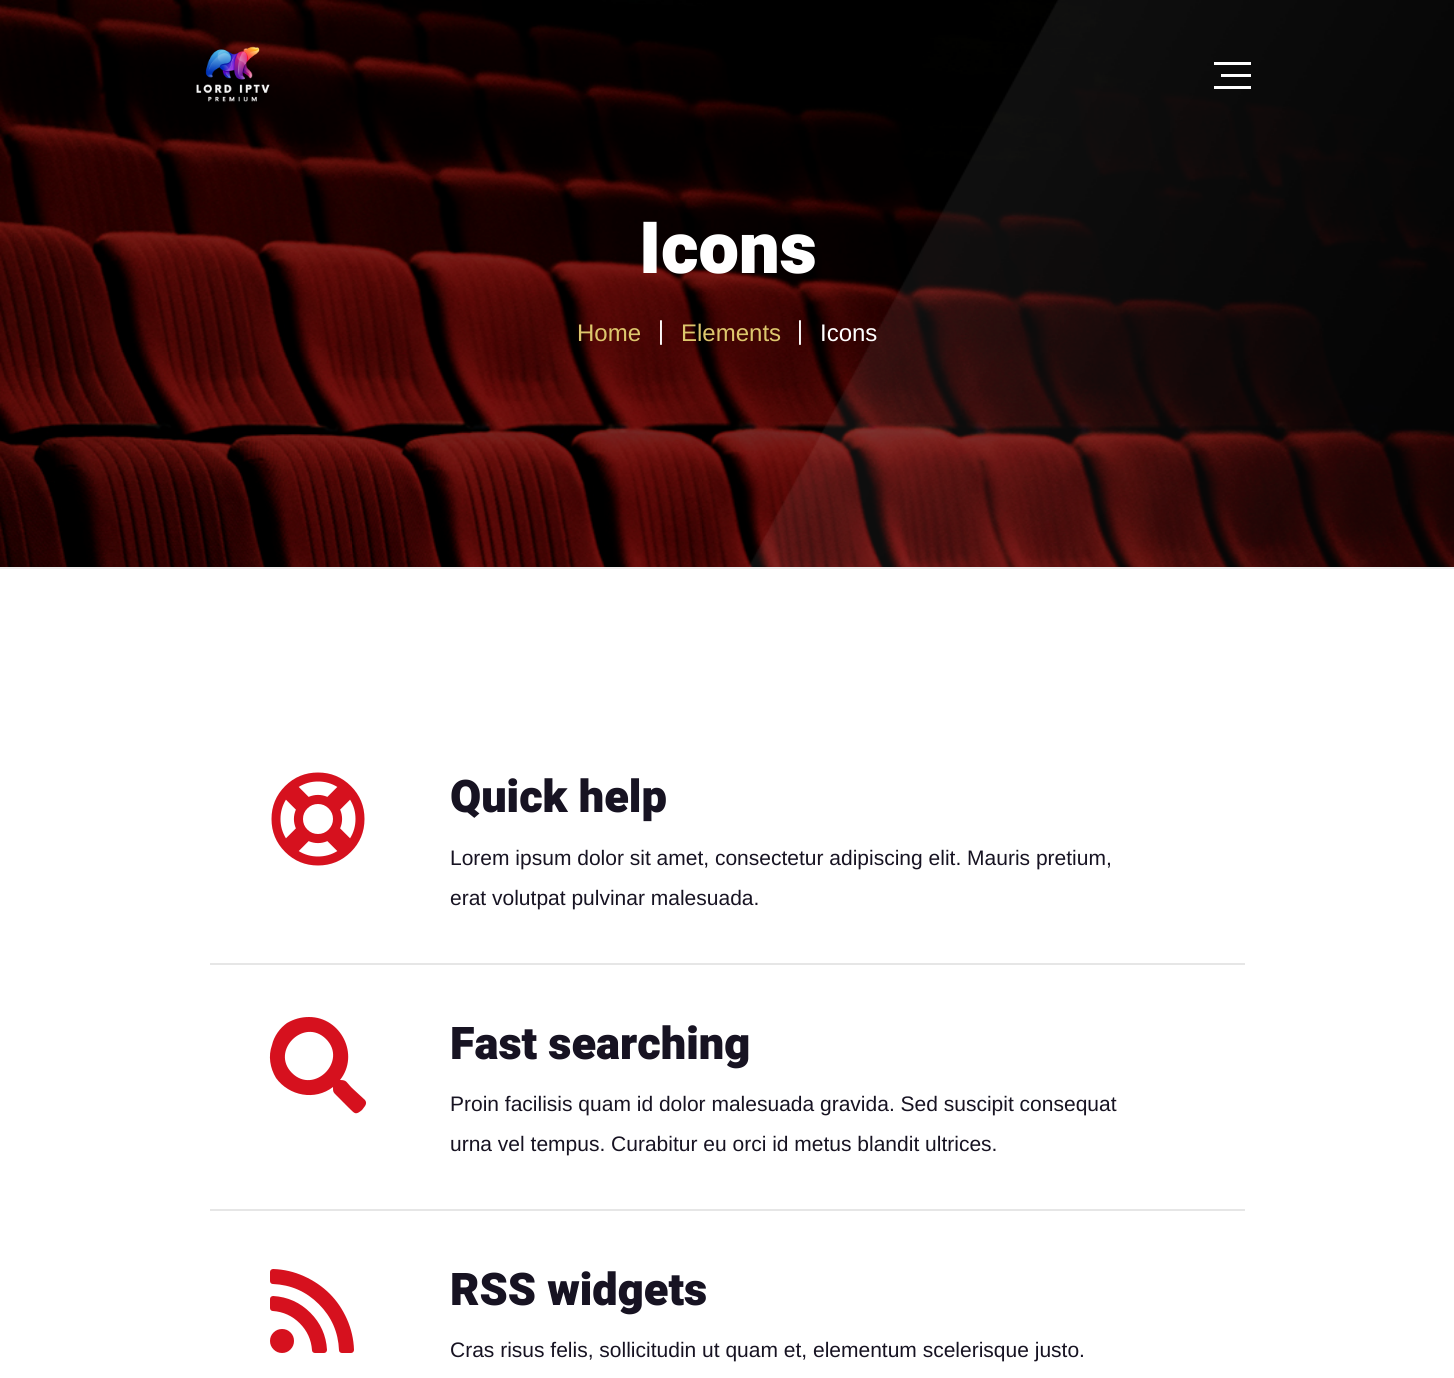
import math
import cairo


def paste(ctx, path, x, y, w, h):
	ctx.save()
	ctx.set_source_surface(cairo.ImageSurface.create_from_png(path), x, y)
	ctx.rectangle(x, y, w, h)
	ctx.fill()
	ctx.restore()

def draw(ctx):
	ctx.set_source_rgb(1, 1, 1)
	ctx.paint()
	paste(ctx, 'media/2.png', 0, 0, 1454, 567)
	paste(ctx, 'media/1.png', 196, 46, 74, 56)
	paste(ctx, 'media/3.png', 749, 0, 705, 567)
	ctx.set_source_rgb(1, 1, 1)
	ctx.rectangle(1214, 62, 37, 3)
	ctx.rectangle(1221, 74, 30, 3)
	ctx.rectangle(1214, 86, 37, 3)
	ctx.fill()
	ctx.set_source_rgb(0.933, 0.933, 0.933)
	ctx.rectangle(0, 567, 1454, 2)
	ctx.fill()
	ctx.select_font_face('Heebo Black')
	ctx.set_font_size(72)
	ctx.set_source_rgb(1, 1, 1)
	ctx.move_to(639, 273)
	ctx.show_text('Icons')
	ctx.select_font_face('Liberation Sans')
	ctx.set_font_size(24)
	ctx.set_source_rgb(0.867, 0.78, 0.427)
	ctx.move_to(577, 341)
	ctx.show_text('Home')
	ctx.select_font_face('Liberation Serif', cairo.FONT_SLANT_NORMAL, cairo.FONT_WEIGHT_BOLD)
	ctx.set_font_size(27)
	ctx.set_source_rgb(1, 1, 1)
	ctx.move_to(658, 339)
	ctx.show_text('|')
	ctx.select_font_face('Liberation Sans')
	ctx.set_font_size(24)
	ctx.set_source_rgb(0.867, 0.78, 0.427)
	ctx.move_to(681, 341)
	ctx.show_text('Elements')
	ctx.select_font_face('Liberation Serif', cairo.FONT_SLANT_NORMAL, cairo.FONT_WEIGHT_BOLD)
	ctx.set_font_size(27)
	ctx.set_source_rgb(1, 1, 1)
	ctx.move_to(797, 339)
	ctx.show_text('|')
	ctx.select_font_face('Liberation Sans')
	ctx.set_font_size(24)
	ctx.move_to(820, 341)
	ctx.show_text('Icons')
	ctx.set_source_rgb(0.902, 0.902, 0.902)
	ctx.rectangle(210, 963, 1035, 2)
	ctx.fill()
	paste(ctx, 'media/4.png', 271, 772, 94, 94)
	ctx.select_font_face('Heebo Black')
	ctx.set_font_size(45)
	ctx.set_source_rgb(0.09, 0.078, 0.133)
	ctx.move_to(450, 812)
	ctx.show_text('Quick help')
	ctx.select_font_face('Liberation Sans')
	ctx.set_font_size(21)
	ctx.move_to(450, 865)
	ctx.show_text('Lorem ipsum dolor sit amet, consectetur adipiscing elit. Mauris pretium,')
	ctx.move_to(450, 905)
	ctx.show_text('erat volutpat pulvinar malesuada.')
	ctx.set_source_rgb(0.902, 0.902, 0.902)
	ctx.rectangle(210, 1209, 1035, 2)
	ctx.fill()
	ctx.set_source_rgb(0.839, 0.067, 0.118)
	ctx.new_path()
	ctx.move_to(365, 1100)
	ctx.curve_to(368, 1104, 364, 1107, 362, 1110)
	ctx.curve_to(356, 1115, 355, 1114, 350, 1109)
	ctx.line_to(337, 1096)
	ctx.curve_to(333, 1092, 333, 1092, 333, 1087)
	ctx.curve_to(315, 1101, 289, 1096, 276, 1078)
	ctx.curve_to(270, 1068, 268, 1056, 272, 1045)
	ctx.curve_to(274, 1036, 280, 1028, 287, 1023)
	ctx.curve_to(294, 1019, 301, 1017, 309, 1017)
	ctx.curve_to(341, 1017, 360, 1055, 340, 1080)
	ctx.curve_to(347, 1080, 346, 1082, 352, 1088)
	ctx.close_path()
	ctx.move_to(292, 1073)
	ctx.curve_to(314, 1095, 348, 1061, 326, 1039)
	ctx.curve_to(304, 1017, 270, 1051, 292, 1073)
	ctx.close_path()
	ctx.fill()
	ctx.select_font_face('Heebo Black')
	ctx.set_font_size(45)
	ctx.set_source_rgb(0.09, 0.078, 0.133)
	ctx.move_to(450, 1059)
	ctx.show_text('Fast searching')
	ctx.select_font_face('Liberation Sans')
	ctx.set_font_size(21)
	ctx.move_to(450, 1111)
	ctx.show_text('Proin facilisis quam id dolor malesuada gravida. Sed suscipit consequat')
	ctx.move_to(450, 1151)
	ctx.show_text('urna vel tempus. Curabitur eu orci id metus blandit ultrices.')
	paste(ctx, 'media/5.png', 270, 1269, 84, 84)
	ctx.select_font_face('Heebo Black')
	ctx.set_font_size(45)
	ctx.move_to(450, 1305)
	ctx.show_text('RSS widgets')
	ctx.select_font_face('Liberation Sans')
	ctx.set_font_size(21)
	ctx.move_to(450, 1357)
	ctx.show_text('Cras risus felis, sollicitudin ut quam et, elementum scelerisque justo.')


surface = cairo.ImageSurface(cairo.FORMAT_RGB24, 1454, 1378)
ctx = cairo.Context(surface)
options = cairo.FontOptions()
options.set_hint_metrics(cairo.HINT_METRICS_OFF)
options.set_hint_style(cairo.HINT_STYLE_NONE)
ctx.set_font_options(options)
ctx.set_miter_limit(4)
draw(ctx)
surface.write_to_png('image.png')
